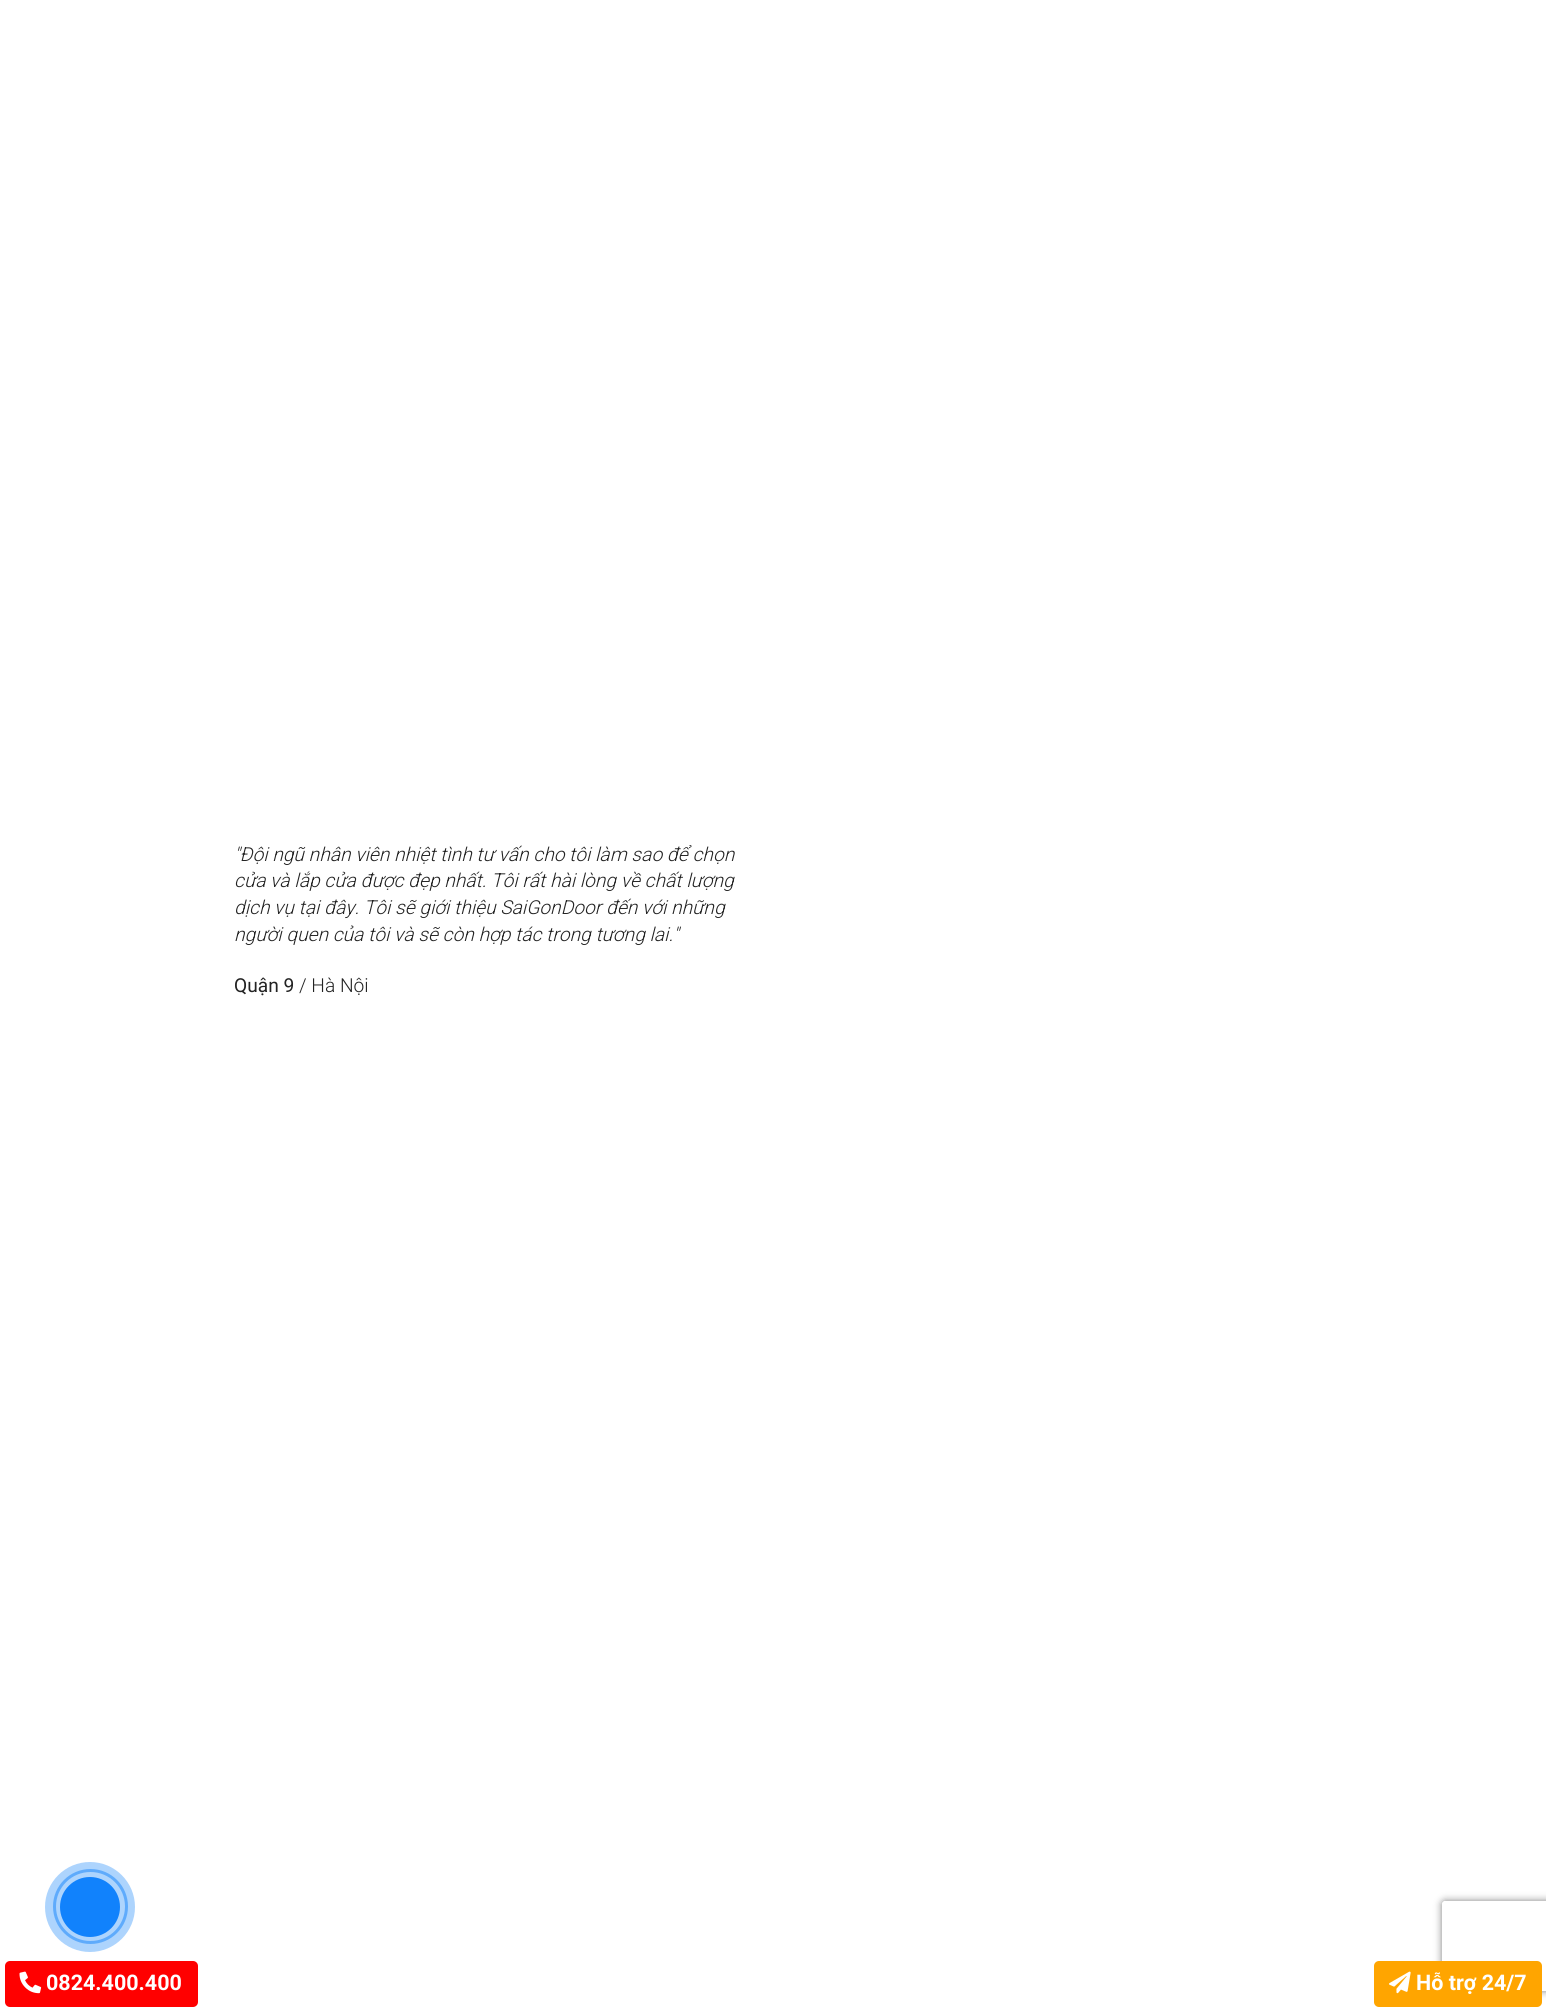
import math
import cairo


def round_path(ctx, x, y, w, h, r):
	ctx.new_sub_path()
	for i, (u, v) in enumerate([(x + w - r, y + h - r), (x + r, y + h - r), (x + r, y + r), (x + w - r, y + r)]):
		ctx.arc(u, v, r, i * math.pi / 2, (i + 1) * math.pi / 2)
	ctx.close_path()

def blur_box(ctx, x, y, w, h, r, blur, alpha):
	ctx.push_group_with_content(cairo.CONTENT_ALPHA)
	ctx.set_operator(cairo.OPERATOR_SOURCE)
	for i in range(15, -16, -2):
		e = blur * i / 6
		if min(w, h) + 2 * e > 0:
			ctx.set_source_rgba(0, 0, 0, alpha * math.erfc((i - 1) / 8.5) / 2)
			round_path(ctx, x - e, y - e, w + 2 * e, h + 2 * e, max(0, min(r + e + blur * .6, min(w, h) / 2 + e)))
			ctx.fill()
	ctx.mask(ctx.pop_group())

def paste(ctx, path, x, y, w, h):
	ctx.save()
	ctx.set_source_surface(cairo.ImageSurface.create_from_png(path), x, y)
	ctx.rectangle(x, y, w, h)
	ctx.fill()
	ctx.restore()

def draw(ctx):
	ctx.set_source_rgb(1, 1, 1)
	ctx.paint()
	ctx.select_font_face('Roboto Light', cairo.FONT_SLANT_ITALIC)
	ctx.set_font_size(19.2)
	ctx.set_source_rgb(0.137, 0.137, 0.137)
	for x, y, s in [
		(234, 861, '"Đội ngũ nhân viên nhiệt tình tư vấn cho tôi làm sao để chọn'),
		(234, 887, 'cửa và lắp cửa được đẹp nhất. Tôi rất hài lòng về chất lượng'),
		(234, 914, 'dịch vụ tại đây. Tôi sẽ giới thiệu SaiGonDoor đến với những'),
		(234, 941, 'người quen của tôi và sẽ còn hợp tác trong tương lai."'),
	]:
		ctx.move_to(x, y)
		ctx.show_text(s)
	ctx.select_font_face('Roboto')
	ctx.move_to(234, 992)
	ctx.show_text('Quận 9')
	ctx.select_font_face('Roboto Light')
	ctx.move_to(299, 992)
	ctx.show_text('/ Hà Nội')
	ctx.new_path()
	ctx.arc(90.5, 1906.5, 36, 0, 2 * math.pi)
	ctx.set_source_rgb(0.533, 0.757, 0.996)
	ctx.set_line_width(3)
	ctx.stroke()
	ctx.set_source_rgba(0.067, 0.51, 0.988, 0.34)
	ctx.arc(90, 1907, 45, 0, 2 * math.pi)
	ctx.fill()
	ctx.set_source_rgb(0.067, 0.51, 0.988)
	ctx.arc(90, 1907, 30, 0, 2 * math.pi)
	ctx.fill()
	ctx.save()
	ctx.set_fill_rule(cairo.FILL_RULE_EVEN_ODD)
	ctx.new_path()
	ctx.move_to(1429, 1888)
	ctx.line_to(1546, 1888)
	ctx.line_to(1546, 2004)
	ctx.line_to(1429, 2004)
	ctx.close_path()
	ctx.move_to(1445, 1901)
	ctx.line_to(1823, 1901)
	ctx.curve_to(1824.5, 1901, 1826, 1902.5, 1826, 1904)
	ctx.line_to(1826, 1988)
	ctx.curve_to(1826, 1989.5, 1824.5, 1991, 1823, 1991)
	ctx.line_to(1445, 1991)
	ctx.curve_to(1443.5, 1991, 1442, 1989.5, 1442, 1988)
	ctx.line_to(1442, 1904)
	ctx.curve_to(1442, 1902.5, 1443.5, 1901, 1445, 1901)
	ctx.close_path()
	ctx.clip()
	ctx.set_source_rgb(0.502, 0.502, 0.502)
	blur_box(ctx, 1442, 1901, 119, 90, 3, 4, 1)
	ctx.restore()
	ctx.set_source_rgb(1, 0, 0)
	round_path(ctx, 5, 1961, 193, 46, 5)
	ctx.fill()
	paste(ctx, 'media/1.png', 19, 1971, 23, 23)
	ctx.select_font_face('Roboto', cairo.FONT_SLANT_NORMAL, cairo.FONT_WEIGHT_BOLD)
	ctx.set_font_size(21.5)
	ctx.set_source_rgb(1, 1, 1)
	ctx.move_to(46, 1990)
	ctx.show_text('0824.400.400')
	ctx.set_source_rgb(1, 0.647, 0)
	round_path(ctx, 1374, 1961, 168, 46, 5)
	ctx.fill()
	paste(ctx, 'media/2.png', 1389, 1971, 22, 23)
	ctx.set_source_rgb(1, 1, 1)
	ctx.move_to(1416, 1990)
	ctx.show_text('Hỗ trợ 24/7')


surface = cairo.ImageSurface(cairo.FORMAT_RGB24, 1546, 2011)
ctx = cairo.Context(surface)
options = cairo.FontOptions()
options.set_hint_metrics(cairo.HINT_METRICS_OFF)
options.set_hint_style(cairo.HINT_STYLE_NONE)
ctx.set_font_options(options)
ctx.set_miter_limit(4)
draw(ctx)
surface.write_to_png('image.png')
